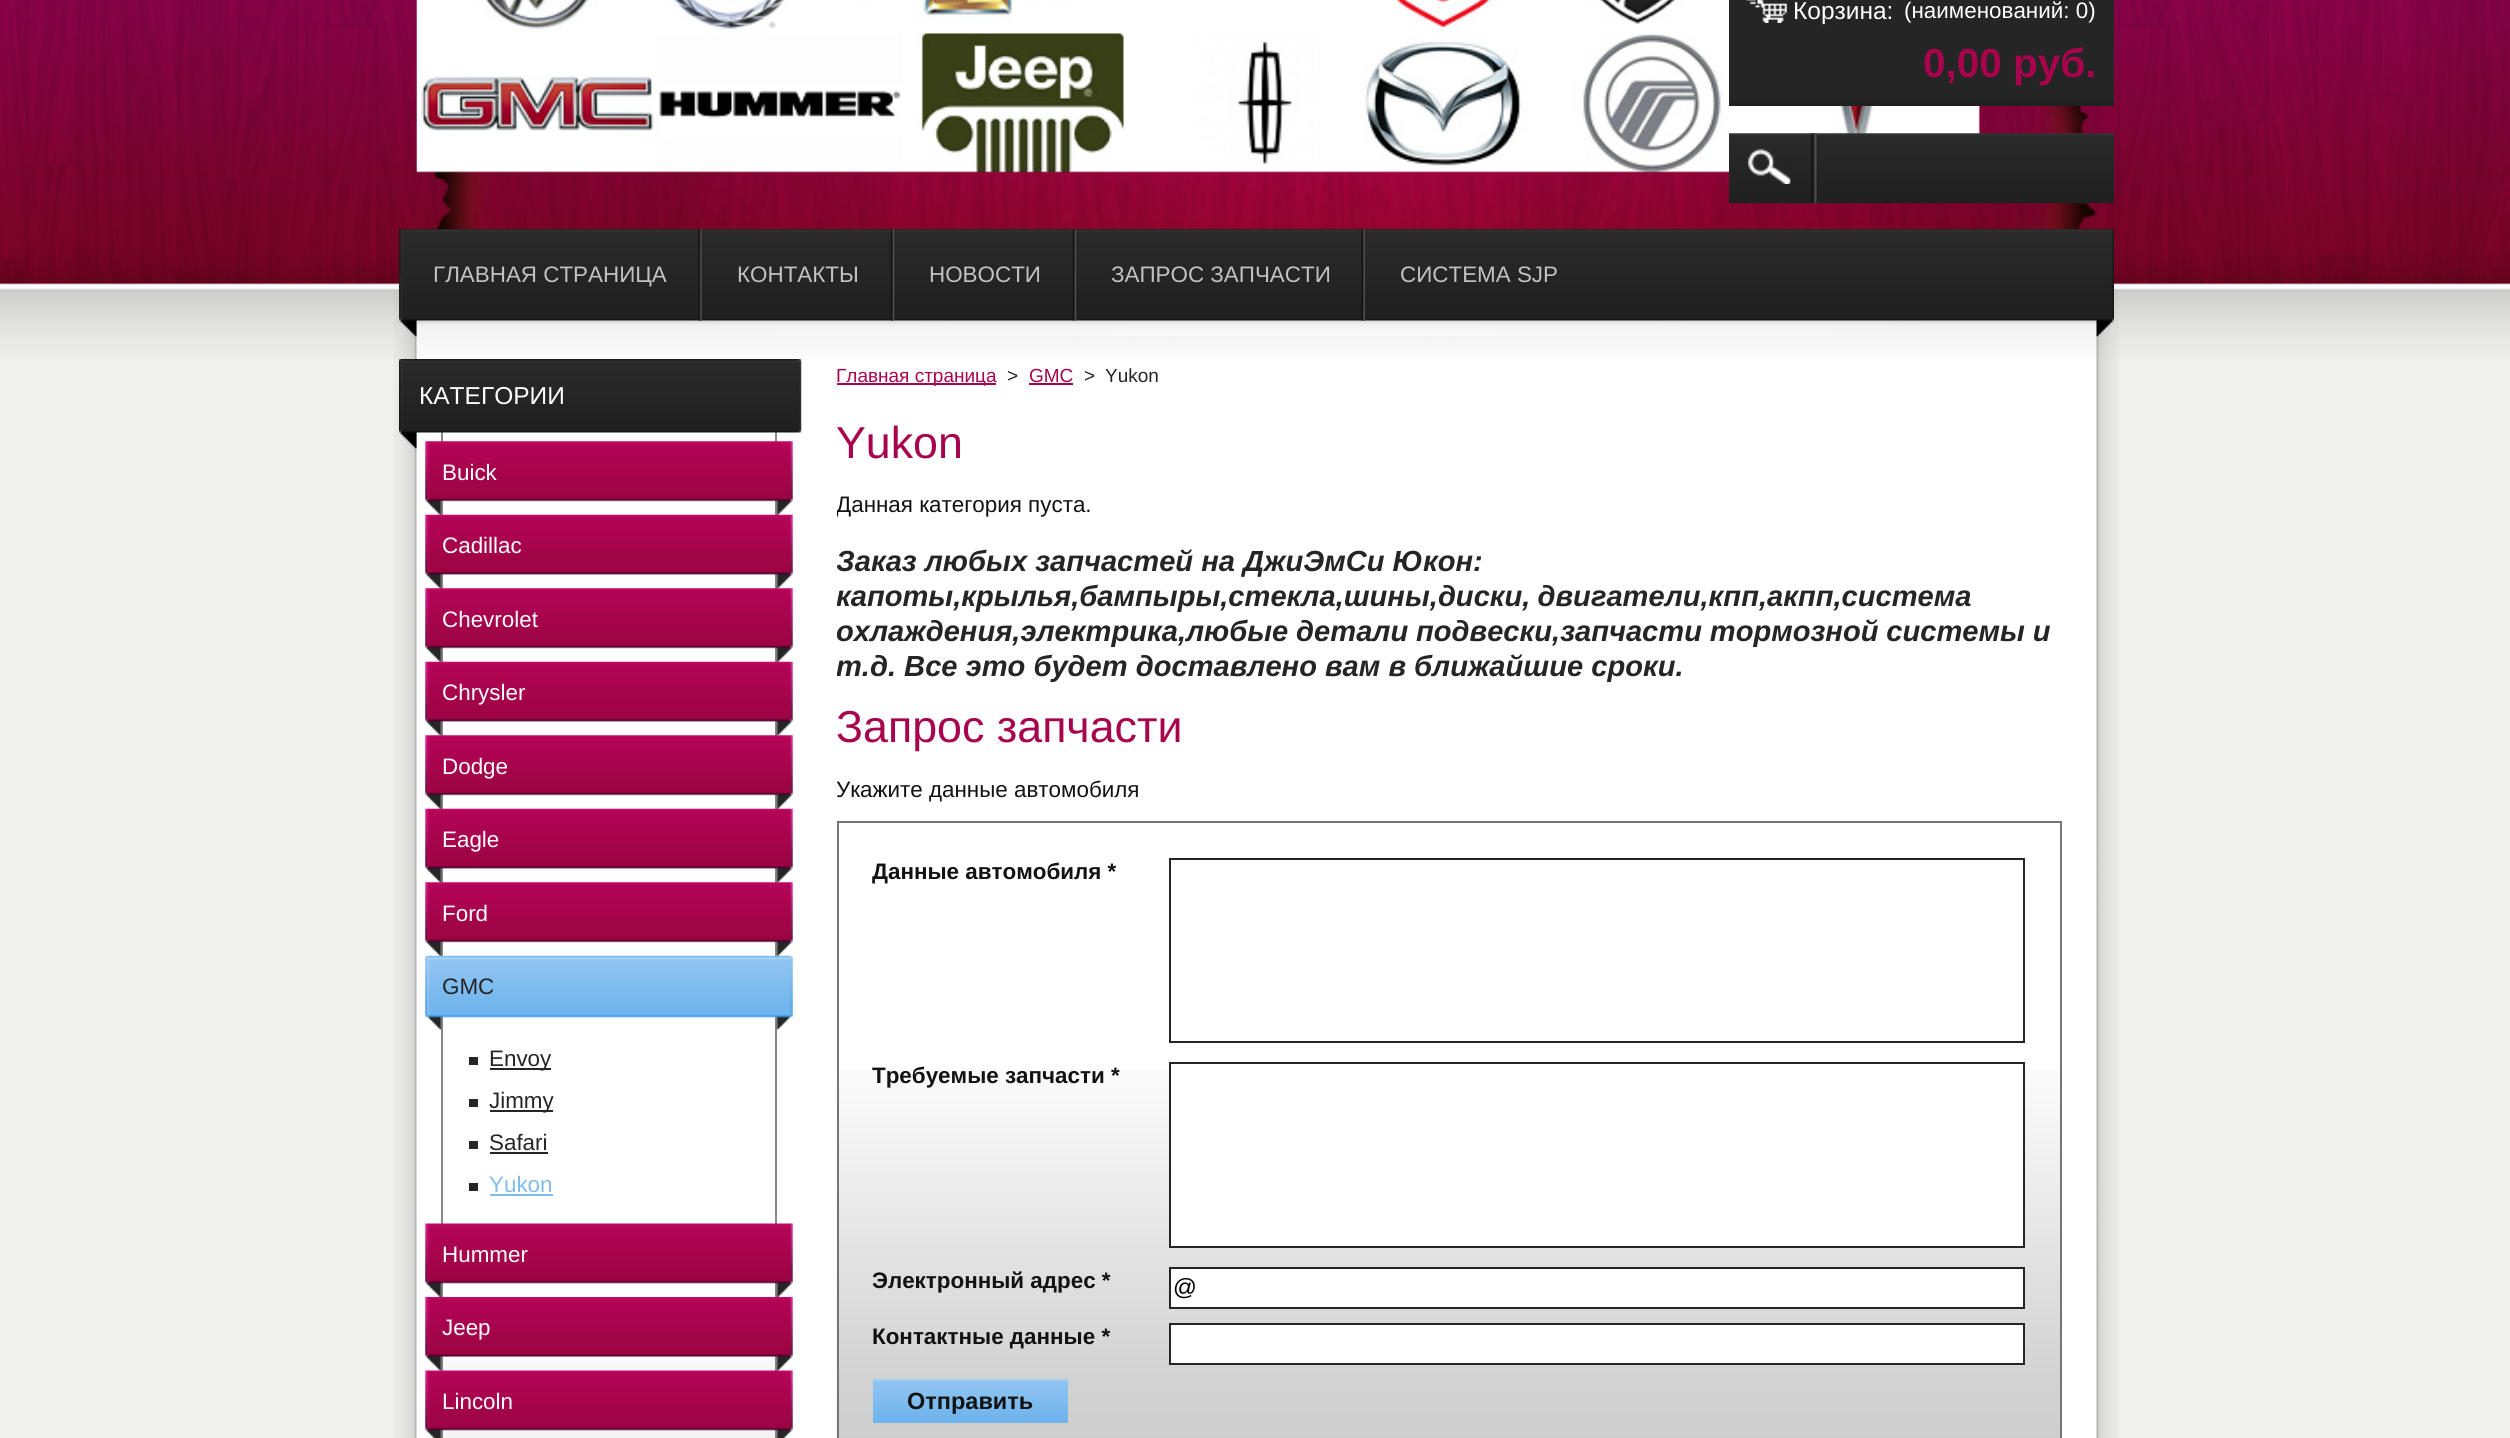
import math
import cairo


def write_spaced(ctx, x, y, s, letter, word):
	ctx.move_to(x, y)
	for ch in s:
		ctx.show_text(ch)
		ctx.rel_move_to(letter + word * (ch == ' '), 0)

def paste(ctx, path, x, y, w, h):
	ctx.save()
	ctx.set_source_surface(cairo.ImageSurface.create_from_png(path), x, y)
	ctx.rectangle(x, y, w, h)
	ctx.fill()
	ctx.restore()

def draw(ctx):
	ctx.set_source_rgb(0.941, 0.941, 0.933)
	ctx.paint()
	paste(ctx, 'media/1.png', 394, 288, 1725, 1150)
	paste(ctx, 'media/2.png', 0, 0, 2510, 360)
	paste(ctx, 'media/3.png', 416, 0, 1681, 229)
	ctx.set_source_rgb(0.145, 0.145, 0.145)
	ctx.rectangle(1729, 0, 385, 100)
	ctx.fill()
	ctx.set_source_rgb(0.125, 0.125, 0.125)
	ctx.rectangle(1729, 100, 385, 6)
	ctx.fill()
	paste(ctx, 'media/4.png', 1746, 0, 41, 23)
	ctx.select_font_face('Liberation Sans')
	ctx.set_font_size(24.5)
	ctx.set_source_rgb(1, 1, 1)
	ctx.move_to(1793, 19)
	ctx.show_text('Корзина:')
	ctx.set_font_size(22.4)
	ctx.move_to(1904, 18)
	ctx.show_text('(наименований: 0)')
	ctx.select_font_face('Liberation Sans', cairo.FONT_SLANT_NORMAL, cairo.FONT_WEIGHT_BOLD)
	ctx.set_font_size(40.5)
	ctx.set_source_rgb(0.659, 0.016, 0.302)
	ctx.move_to(1923, 77)
	ctx.show_text('0,00 руб.')
	paste(ctx, 'media/5.png', 1729, 133, 385, 71)
	paste(ctx, 'media/6.png', 1748, 149, 43, 35)
	paste(ctx, 'media/7.png', 1811, 133, 6, 71)
	ctx.set_source_rgb(0.071, 0.071, 0.071)
	ctx.rectangle(399, 229, 1715, 1)
	ctx.fill()
	paste(ctx, 'media/8.png', 399, 229, 1715, 108)
	paste(ctx, 'media/9.png', 698, 229, 4, 92)
	ctx.select_font_face('Liberation Sans')
	ctx.set_font_size(22.4)
	ctx.set_source_rgb(0.761, 0.761, 0.761)
	ctx.move_to(433, 282)
	ctx.show_text('ГЛАВНАЯ СТРАНИЦА')
	paste(ctx, 'media/10.png', 890, 229, 5, 92)
	ctx.move_to(737, 282)
	ctx.show_text('КОНТАКТЫ')
	paste(ctx, 'media/10.png', 1072, 229, 5, 92)
	ctx.move_to(929, 282)
	ctx.show_text('НОВОСТИ')
	paste(ctx, 'media/11.png', 1361, 229, 4, 92)
	ctx.move_to(1111, 282)
	ctx.show_text('ЗАПРОС ЗАПЧАСТИ')
	ctx.move_to(1400, 282)
	ctx.show_text('СИСТЕМА SJP')
	ctx.set_source_rgb(0.529, 0.529, 0.529)
	ctx.rectangle(775, 432, 2, 1006)
	ctx.fill()
	ctx.rectangle(441, 432, 2, 1006)
	ctx.fill()
	paste(ctx, 'media/12.png', 399, 359, 403, 90)
	ctx.set_font_size(24.5)
	ctx.set_source_rgb(1, 1, 1)
	ctx.move_to(419, 404)
	ctx.show_text('КАТЕГОРИИ')
	paste(ctx, 'media/13.png', 443, 1356, 332, 82)
	paste(ctx, 'media/14.png', 425, 441, 368, 74)
	ctx.set_font_size(22.4)
	ctx.move_to(442, 480)
	ctx.show_text('Buick')
	paste(ctx, 'media/15.png', 425, 514, 368, 75)
	ctx.move_to(442, 553)
	ctx.show_text('Cadillac')
	paste(ctx, 'media/16.png', 425, 588, 368, 74)
	ctx.move_to(442, 627)
	ctx.show_text('Chevrolet')
	paste(ctx, 'media/15.png', 425, 661, 368, 75)
	ctx.move_to(442, 700)
	ctx.show_text('Chrysler')
	paste(ctx, 'media/16.png', 425, 735, 368, 74)
	ctx.move_to(442, 774)
	ctx.show_text('Dodge')
	paste(ctx, 'media/15.png', 425, 808, 368, 75)
	ctx.move_to(442, 847)
	ctx.show_text('Eagle')
	paste(ctx, 'media/16.png', 425, 882, 368, 74)
	ctx.move_to(442, 921)
	ctx.show_text('Ford')
	paste(ctx, 'media/17.png', 425, 955, 368, 75)
	ctx.set_source_rgb(0.145, 0.145, 0.145)
	ctx.move_to(442, 994)
	ctx.show_text('GMC')
	ctx.rectangle(469, 1057, 9, 8)
	ctx.fill()
	ctx.rectangle(490, 1068, 61, 2)
	ctx.fill()
	ctx.move_to(489, 1066)
	ctx.show_text('Envoy')
	ctx.rectangle(469, 1099, 9, 8)
	ctx.fill()
	ctx.rectangle(490, 1110, 63, 2)
	ctx.fill()
	ctx.move_to(489, 1108)
	ctx.show_text('Jimmy')
	ctx.rectangle(469, 1141, 9, 8)
	ctx.fill()
	ctx.move_to(489, 1150)
	ctx.show_text('Safari')
	ctx.rectangle(490, 1152, 58, 2)
	ctx.fill()
	ctx.rectangle(469, 1183, 9, 8)
	ctx.fill()
	ctx.set_source_rgb(0.498, 0.737, 0.937)
	ctx.move_to(489, 1192)
	ctx.show_text('Yukon')
	ctx.rectangle(490, 1194, 63, 2)
	ctx.fill()
	paste(ctx, 'media/18.png', 425, 1223, 368, 74)
	ctx.set_source_rgb(1, 1, 1)
	ctx.move_to(442, 1262)
	ctx.show_text('Hummer')
	paste(ctx, 'media/19.png', 425, 1297, 368, 74)
	ctx.move_to(442, 1335)
	ctx.show_text('Jeep')
	paste(ctx, 'media/20.png', 425, 1370, 368, 68)
	ctx.move_to(442, 1409)
	ctx.show_text('Lincoln')
	ctx.set_source_rgb(0.659, 0.016, 0.302)
	ctx.rectangle(837, 383, 159, 2)
	ctx.fill()
	ctx.set_font_size(19)
	ctx.move_to(836, 382)
	ctx.show_text('Главная страница')
	ctx.set_source_rgb(0.145, 0.145, 0.145)
	ctx.move_to(1007, 382)
	ctx.show_text('>')
	ctx.set_source_rgb(0.659, 0.016, 0.302)
	ctx.move_to(1029, 382)
	ctx.show_text('GMC')
	ctx.rectangle(1029, 383, 44, 2)
	ctx.fill()
	ctx.set_source_rgb(0.145, 0.145, 0.145)
	ctx.move_to(1084, 382)
	ctx.show_text('>')
	ctx.move_to(1105, 382)
	ctx.show_text('Yukon')
	ctx.set_font_size(44.75)
	ctx.set_source_rgb(0.659, 0.016, 0.302)
	ctx.move_to(836, 458)
	ctx.show_text('Yukon')
	ctx.save()
	ctx.rectangle(837, 341, 1225, 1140)
	ctx.clip()
	ctx.set_font_size(22.4)
	ctx.set_source_rgb(0.071, 0.071, 0.071)
	ctx.move_to(836, 512)
	ctx.show_text('Данная категория пуста.')
	ctx.restore()
	ctx.save()
	ctx.rectangle(837, 536, 1225, 157)
	ctx.clip()
	ctx.select_font_face('Liberation Sans', cairo.FONT_SLANT_ITALIC, cairo.FONT_WEIGHT_BOLD)
	ctx.set_font_size(29.1)
	ctx.set_source_rgb(0.145, 0.145, 0.145)
	ctx.move_to(836, 571)
	ctx.show_text('Заказ любых запчастей на ДжиЭмСи Юкон:')
	write_spaced(ctx, 836, 606, 'капоты,крылья,бампыры,стекла,шины,диски, двигатели,кпп,акпп,система', 0, -1)
	write_spaced(ctx, 836, 641, 'охлаждения,электрика,любые детали подвески,запчасти тормозной системы и', 0, -0.25)
	ctx.move_to(836, 676)
	ctx.show_text('т.д. Все это будет доставлено вам в ближайшие сроки.')
	ctx.restore()
	ctx.move_to(836, 742)
	ctx.show_text('Запрос запчасти')
	ctx.save()
	ctx.rectangle(837, 770, 1225, 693)
	ctx.clip()
	ctx.set_font_size(22.4)
	ctx.set_source_rgb(0.071, 0.071, 0.071)
	ctx.move_to(836, 797)
	ctx.show_text('Укажите данные автомобиля')
	ctx.restore()
	paste(ctx, 'media/21.png', 836, 1070, 1224, 368)
	ctx.rectangle(838, 822, 1223, 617)
	ctx.set_source_rgb(0.459, 0.459, 0.459)
	ctx.stroke()
	ctx.select_font_face('Liberation Sans', cairo.FONT_SLANT_NORMAL, cairo.FONT_WEIGHT_BOLD)
	ctx.set_font_size(22.4)
	ctx.set_source_rgb(0.071, 0.071, 0.071)
	ctx.move_to(872, 879)
	ctx.show_text('Данные автомобиля *')
	ctx.rectangle(1170, 859, 854, 183)
	ctx.set_source_rgb(0.145, 0.145, 0.145)
	ctx.stroke()
	ctx.set_source_rgb(0.071, 0.071, 0.071)
	ctx.move_to(872, 1083)
	ctx.show_text('Требуемые запчасти *')
	ctx.set_source_rgb(1, 1, 1)
	ctx.rectangle(1171, 1070, 852, 176)
	ctx.fill()
	ctx.rectangle(1170, 1063, 854, 184)
	ctx.set_source_rgb(0.145, 0.145, 0.145)
	ctx.stroke()
	ctx.set_source_rgb(0.071, 0.071, 0.071)
	ctx.move_to(872, 1288)
	ctx.show_text('Электронный адрес *')
	ctx.set_source_rgb(1, 1, 1)
	ctx.rectangle(1170, 1268, 854, 40)
	ctx.fill_preserve()
	ctx.set_source_rgb(0.145, 0.145, 0.145)
	ctx.stroke()
	ctx.select_font_face('Liberation Sans')
	ctx.set_font_size(23.5)
	ctx.set_source_rgb(0, 0, 0)
	ctx.move_to(1173, 1295)
	ctx.show_text('@')
	ctx.select_font_face('Liberation Sans', cairo.FONT_SLANT_NORMAL, cairo.FONT_WEIGHT_BOLD)
	ctx.set_font_size(22.4)
	ctx.set_source_rgb(0.071, 0.071, 0.071)
	ctx.move_to(872, 1344)
	ctx.show_text('Контактные данные *')
	ctx.set_source_rgb(1, 1, 1)
	ctx.rectangle(1170, 1324, 854, 40)
	ctx.fill_preserve()
	ctx.set_source_rgb(0.145, 0.145, 0.145)
	ctx.stroke()
	ctx.set_source_rgb(0.498, 0.737, 0.937)
	ctx.rectangle(873, 1379, 195, 44)
	ctx.fill()
	paste(ctx, 'media/22.png', 873, 1379, 195, 44)
	ctx.set_font_size(23.5)
	ctx.set_source_rgb(0.071, 0.071, 0.071)
	ctx.move_to(907, 1409)
	ctx.show_text('Oтправить')


surface = cairo.ImageSurface(cairo.FORMAT_RGB24, 2510, 1438)
ctx = cairo.Context(surface)
options = cairo.FontOptions()
options.set_hint_metrics(cairo.HINT_METRICS_OFF)
options.set_hint_style(cairo.HINT_STYLE_NONE)
ctx.set_font_options(options)
ctx.set_miter_limit(4)
draw(ctx)
surface.write_to_png('image.png')
